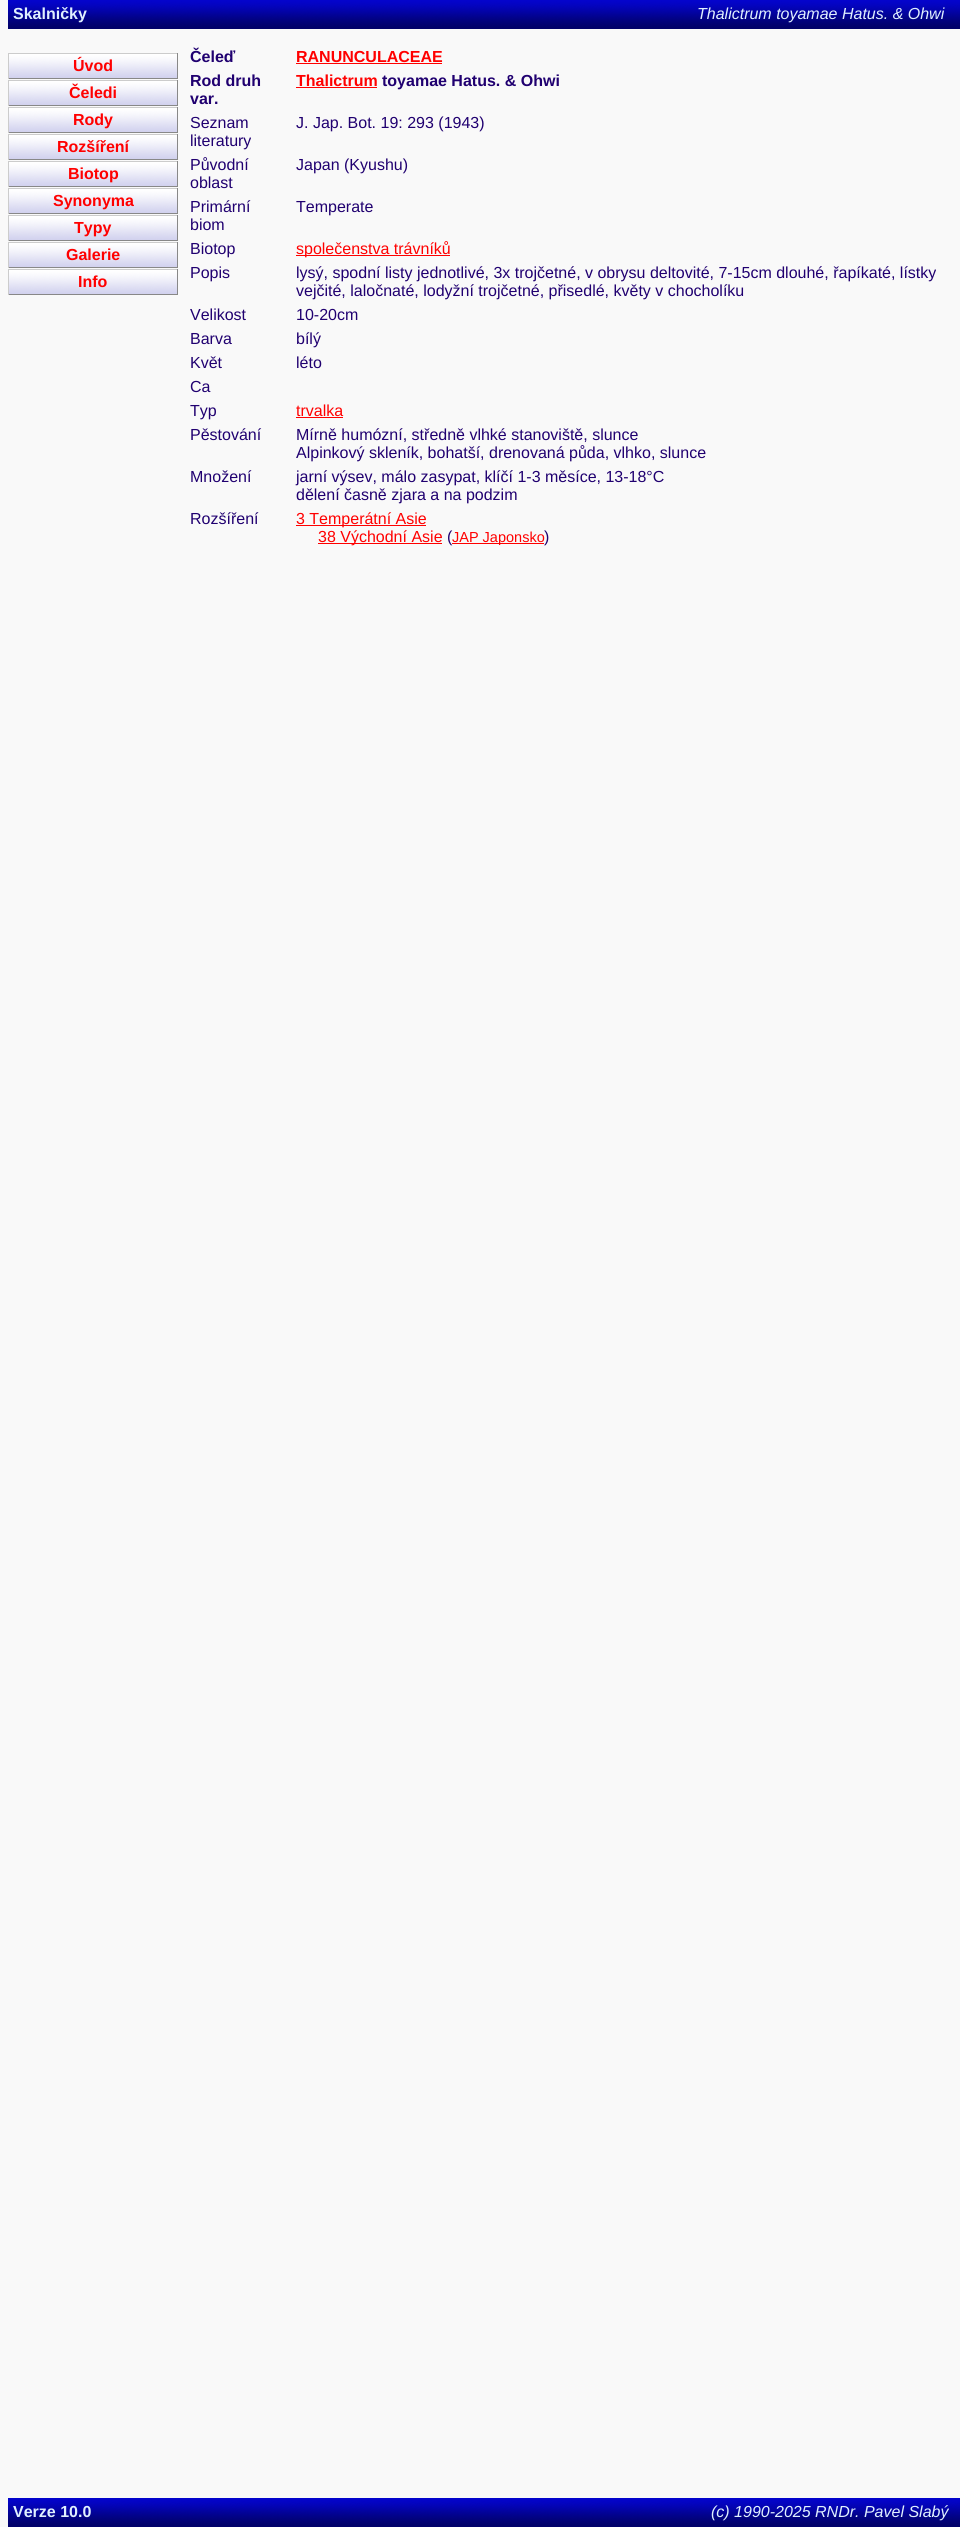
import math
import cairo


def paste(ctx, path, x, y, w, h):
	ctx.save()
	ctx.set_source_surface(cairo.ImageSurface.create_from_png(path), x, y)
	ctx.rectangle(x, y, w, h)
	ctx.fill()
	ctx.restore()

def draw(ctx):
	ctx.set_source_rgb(0.976, 0.976, 0.976)
	ctx.paint()
	paste(ctx, 'media/1.png', 8, 0, 952, 29)
	ctx.select_font_face('Liberation Sans', cairo.FONT_SLANT_NORMAL, cairo.FONT_WEIGHT_BOLD)
	ctx.set_font_size(16)
	ctx.set_source_rgb(0.878, 0.941, 1)
	ctx.move_to(13, 19)
	ctx.show_text('Skalničky')
	ctx.select_font_face('Liberation Sans', cairo.FONT_SLANT_ITALIC)
	ctx.move_to(697, 19)
	ctx.show_text('Thalictrum toyamae Hatus. & Ohwi')
	paste(ctx, 'media/2.png', 9, 54, 168, 24)
	ctx.set_source_rgb(0.8, 0.8, 0.8)
	ctx.rectangle(8, 53, 170, 1)
	ctx.fill()
	ctx.set_source_rgb(0.533, 0.533, 0.533)
	ctx.rectangle(177, 53, 1, 26)
	ctx.rectangle(8, 78, 170, 1)
	ctx.fill()
	ctx.set_source_rgb(0.8, 0.8, 0.8)
	ctx.rectangle(8, 53, 1, 26)
	ctx.fill()
	ctx.select_font_face('Liberation Sans', cairo.FONT_SLANT_NORMAL, cairo.FONT_WEIGHT_BOLD)
	ctx.set_source_rgb(1, 0, 0)
	ctx.move_to(73, 71)
	ctx.show_text('Úvod')
	paste(ctx, 'media/2.png', 9, 81, 168, 24)
	ctx.set_source_rgb(0.8, 0.8, 0.8)
	ctx.rectangle(8, 80, 170, 1)
	ctx.fill()
	ctx.set_source_rgb(0.533, 0.533, 0.533)
	ctx.rectangle(177, 80, 1, 26)
	ctx.rectangle(8, 105, 170, 1)
	ctx.fill()
	ctx.set_source_rgb(0.8, 0.8, 0.8)
	ctx.rectangle(8, 80, 1, 26)
	ctx.fill()
	ctx.set_source_rgb(1, 0, 0)
	ctx.move_to(69, 98)
	ctx.show_text('Čeledi')
	paste(ctx, 'media/2.png', 9, 108, 168, 24)
	ctx.set_source_rgb(0.8, 0.8, 0.8)
	ctx.rectangle(8, 107, 170, 1)
	ctx.fill()
	ctx.set_source_rgb(0.533, 0.533, 0.533)
	ctx.rectangle(177, 107, 1, 26)
	ctx.rectangle(8, 132, 170, 1)
	ctx.fill()
	ctx.set_source_rgb(0.8, 0.8, 0.8)
	ctx.rectangle(8, 107, 1, 26)
	ctx.fill()
	ctx.set_source_rgb(1, 0, 0)
	ctx.move_to(73, 125)
	ctx.show_text('Rody')
	paste(ctx, 'media/2.png', 9, 135, 168, 24)
	ctx.set_source_rgb(0.8, 0.8, 0.8)
	ctx.rectangle(8, 134, 170, 1)
	ctx.fill()
	ctx.set_source_rgb(0.533, 0.533, 0.533)
	ctx.rectangle(177, 134, 1, 26)
	ctx.rectangle(8, 159, 170, 1)
	ctx.fill()
	ctx.set_source_rgb(0.8, 0.8, 0.8)
	ctx.rectangle(8, 134, 1, 26)
	ctx.fill()
	ctx.set_source_rgb(1, 0, 0)
	ctx.move_to(57, 152)
	ctx.show_text('Rozšíření')
	paste(ctx, 'media/2.png', 9, 162, 168, 24)
	ctx.set_source_rgb(0.8, 0.8, 0.8)
	ctx.rectangle(8, 161, 170, 1)
	ctx.fill()
	ctx.set_source_rgb(0.533, 0.533, 0.533)
	ctx.rectangle(177, 161, 1, 26)
	ctx.rectangle(8, 186, 170, 1)
	ctx.fill()
	ctx.set_source_rgb(0.8, 0.8, 0.8)
	ctx.rectangle(8, 161, 1, 26)
	ctx.fill()
	ctx.set_source_rgb(1, 0, 0)
	ctx.move_to(68, 179)
	ctx.show_text('Biotop')
	paste(ctx, 'media/2.png', 9, 189, 168, 24)
	ctx.set_source_rgb(0.8, 0.8, 0.8)
	ctx.rectangle(8, 188, 170, 1)
	ctx.fill()
	ctx.set_source_rgb(0.533, 0.533, 0.533)
	ctx.rectangle(177, 188, 1, 26)
	ctx.rectangle(8, 213, 170, 1)
	ctx.fill()
	ctx.set_source_rgb(0.8, 0.8, 0.8)
	ctx.rectangle(8, 188, 1, 26)
	ctx.fill()
	ctx.set_source_rgb(1, 0, 0)
	ctx.move_to(53, 206)
	ctx.show_text('Synonyma')
	paste(ctx, 'media/2.png', 9, 216, 168, 24)
	ctx.set_source_rgb(0.8, 0.8, 0.8)
	ctx.rectangle(8, 215, 170, 1)
	ctx.fill()
	ctx.set_source_rgb(0.533, 0.533, 0.533)
	ctx.rectangle(177, 215, 1, 26)
	ctx.rectangle(8, 240, 170, 1)
	ctx.fill()
	ctx.set_source_rgb(0.8, 0.8, 0.8)
	ctx.rectangle(8, 215, 1, 26)
	ctx.fill()
	ctx.set_source_rgb(1, 0, 0)
	ctx.move_to(74, 233)
	ctx.show_text('Typy')
	paste(ctx, 'media/2.png', 9, 243, 168, 24)
	ctx.set_source_rgb(0.8, 0.8, 0.8)
	ctx.rectangle(8, 242, 170, 1)
	ctx.fill()
	ctx.set_source_rgb(0.533, 0.533, 0.533)
	ctx.rectangle(177, 242, 1, 26)
	ctx.rectangle(8, 267, 170, 1)
	ctx.fill()
	ctx.set_source_rgb(0.8, 0.8, 0.8)
	ctx.rectangle(8, 242, 1, 26)
	ctx.fill()
	ctx.set_source_rgb(1, 0, 0)
	ctx.move_to(66, 260)
	ctx.show_text('Galerie')
	paste(ctx, 'media/2.png', 9, 270, 168, 24)
	ctx.set_source_rgb(0.8, 0.8, 0.8)
	ctx.rectangle(8, 269, 170, 1)
	ctx.fill()
	ctx.set_source_rgb(0.533, 0.533, 0.533)
	ctx.rectangle(177, 269, 1, 26)
	ctx.rectangle(8, 294, 170, 1)
	ctx.fill()
	ctx.set_source_rgb(0.8, 0.8, 0.8)
	ctx.rectangle(8, 269, 1, 26)
	ctx.fill()
	ctx.set_source_rgb(1, 0, 0)
	ctx.move_to(78, 287)
	ctx.show_text('Info')
	ctx.set_source_rgb(0.125, 0, 0.439)
	ctx.move_to(190, 62)
	ctx.show_text('Čeleď')
	ctx.set_source_rgb(1, 0, 0)
	ctx.move_to(296, 62)
	ctx.show_text('RANUNCULACEAE')
	ctx.rectangle(296, 63, 146, 1)
	ctx.fill()
	ctx.set_source_rgb(0.125, 0, 0.439)
	ctx.move_to(190, 86)
	ctx.show_text('Rod druh')
	ctx.move_to(190, 104)
	ctx.show_text('var.')
	ctx.set_source_rgb(1, 0, 0)
	ctx.move_to(296, 86)
	ctx.show_text('Thalictrum')
	ctx.rectangle(296, 87, 81, 1)
	ctx.fill()
	ctx.set_source_rgb(0.125, 0, 0.439)
	ctx.move_to(382, 86)
	ctx.show_text('toyamae Hatus. & Ohwi')
	ctx.select_font_face('Liberation Sans')
	for x, y, s in [
		(190, 128, 'Seznam'),
		(190, 146, 'literatury'),
		(296, 128, 'J. Jap. Bot. 19: 293 (1943)'),
		(190, 170, 'Původní'),
		(190, 188, 'oblast'),
		(296, 170, 'Japan (Kyushu)'),
		(190, 212, 'Primární'),
		(190, 230, 'biom'),
		(296, 212, 'Temperate'),
		(190, 254, 'Biotop'),
	]:
		ctx.move_to(x, y)
		ctx.show_text(s)
	ctx.set_source_rgb(1, 0, 0)
	ctx.rectangle(296, 255, 154, 1)
	ctx.fill()
	ctx.move_to(296, 254)
	ctx.show_text('společenstva trávníků')
	ctx.set_source_rgb(0.125, 0, 0.439)
	for x, y, s in [
		(190, 278, 'Popis'),
		(296, 278, 'lysý, spodní listy jednotlivé, 3x trojčetné, v obrysu deltovité, 7-15cm dlouhé, řapíkaté, lístky'),
		(296, 296, 'vejčité, laločnaté, lodyžní trojčetné, přisedlé, květy v chocholíku'),
		(190, 320, 'Velikost'),
		(296, 320, '10-20cm'),
		(190, 344, 'Barva'),
		(296, 344, 'bílý'),
		(190, 368, 'Květ'),
		(296, 368, 'léto'),
		(190, 392, 'Ca'),
		(190, 416, 'Typ'),
	]:
		ctx.move_to(x, y)
		ctx.show_text(s)
	ctx.set_source_rgb(1, 0, 0)
	ctx.move_to(296, 416)
	ctx.show_text('trvalka')
	ctx.rectangle(296, 417, 47, 1)
	ctx.fill()
	ctx.set_source_rgb(0.125, 0, 0.439)
	for x, y, s in [
		(190, 440, 'Pěstování'),
		(296, 440, 'Mírně humózní, středně vlhké stanoviště, slunce'),
		(296, 458, 'Alpinkový skleník, bohatší, drenovaná půda, vlhko, slunce'),
		(190, 482, 'Množení'),
		(296, 482, 'jarní výsev, málo zasypat, klíčí 1-3 měsíce, 13-18°C'),
		(296, 500, 'dělení časně zjara a na podzim'),
		(190, 524, 'Rozšíření'),
	]:
		ctx.move_to(x, y)
		ctx.show_text(s)
	ctx.set_source_rgb(1, 0, 0)
	ctx.rectangle(296, 525, 130, 1)
	ctx.fill()
	ctx.move_to(296, 524)
	ctx.show_text('3 Temperátní Asie')
	ctx.rectangle(318, 543, 124, 1)
	ctx.fill()
	ctx.move_to(318, 542)
	ctx.show_text('38 Východní Asie')
	ctx.set_source_rgb(0.125, 0, 0.439)
	ctx.move_to(447, 542)
	ctx.show_text('(')
	ctx.set_source_rgb(1, 0, 0)
	ctx.rectangle(452, 543, 92, 1)
	ctx.fill()
	ctx.set_font_size(14.5)
	ctx.move_to(452, 542)
	ctx.show_text('JAP Japonsko')
	ctx.set_font_size(16)
	ctx.set_source_rgb(0.125, 0, 0.439)
	ctx.move_to(544, 542)
	ctx.show_text(')')
	paste(ctx, 'media/1.png', 8, 2498, 952, 29)
	ctx.select_font_face('Liberation Sans', cairo.FONT_SLANT_NORMAL, cairo.FONT_WEIGHT_BOLD)
	ctx.set_source_rgb(0.878, 0.941, 1)
	ctx.move_to(13, 2517)
	ctx.show_text('Verze 10.0')
	ctx.select_font_face('Liberation Sans', cairo.FONT_SLANT_ITALIC)
	ctx.move_to(711, 2517)
	ctx.show_text('(c) 1990-2025 RNDr. Pavel Slabý')


surface = cairo.ImageSurface(cairo.FORMAT_RGB24, 960, 2527)
ctx = cairo.Context(surface)
options = cairo.FontOptions()
options.set_hint_metrics(cairo.HINT_METRICS_OFF)
options.set_hint_style(cairo.HINT_STYLE_NONE)
ctx.set_font_options(options)
ctx.set_miter_limit(4)
draw(ctx)
surface.write_to_png('image.png')
